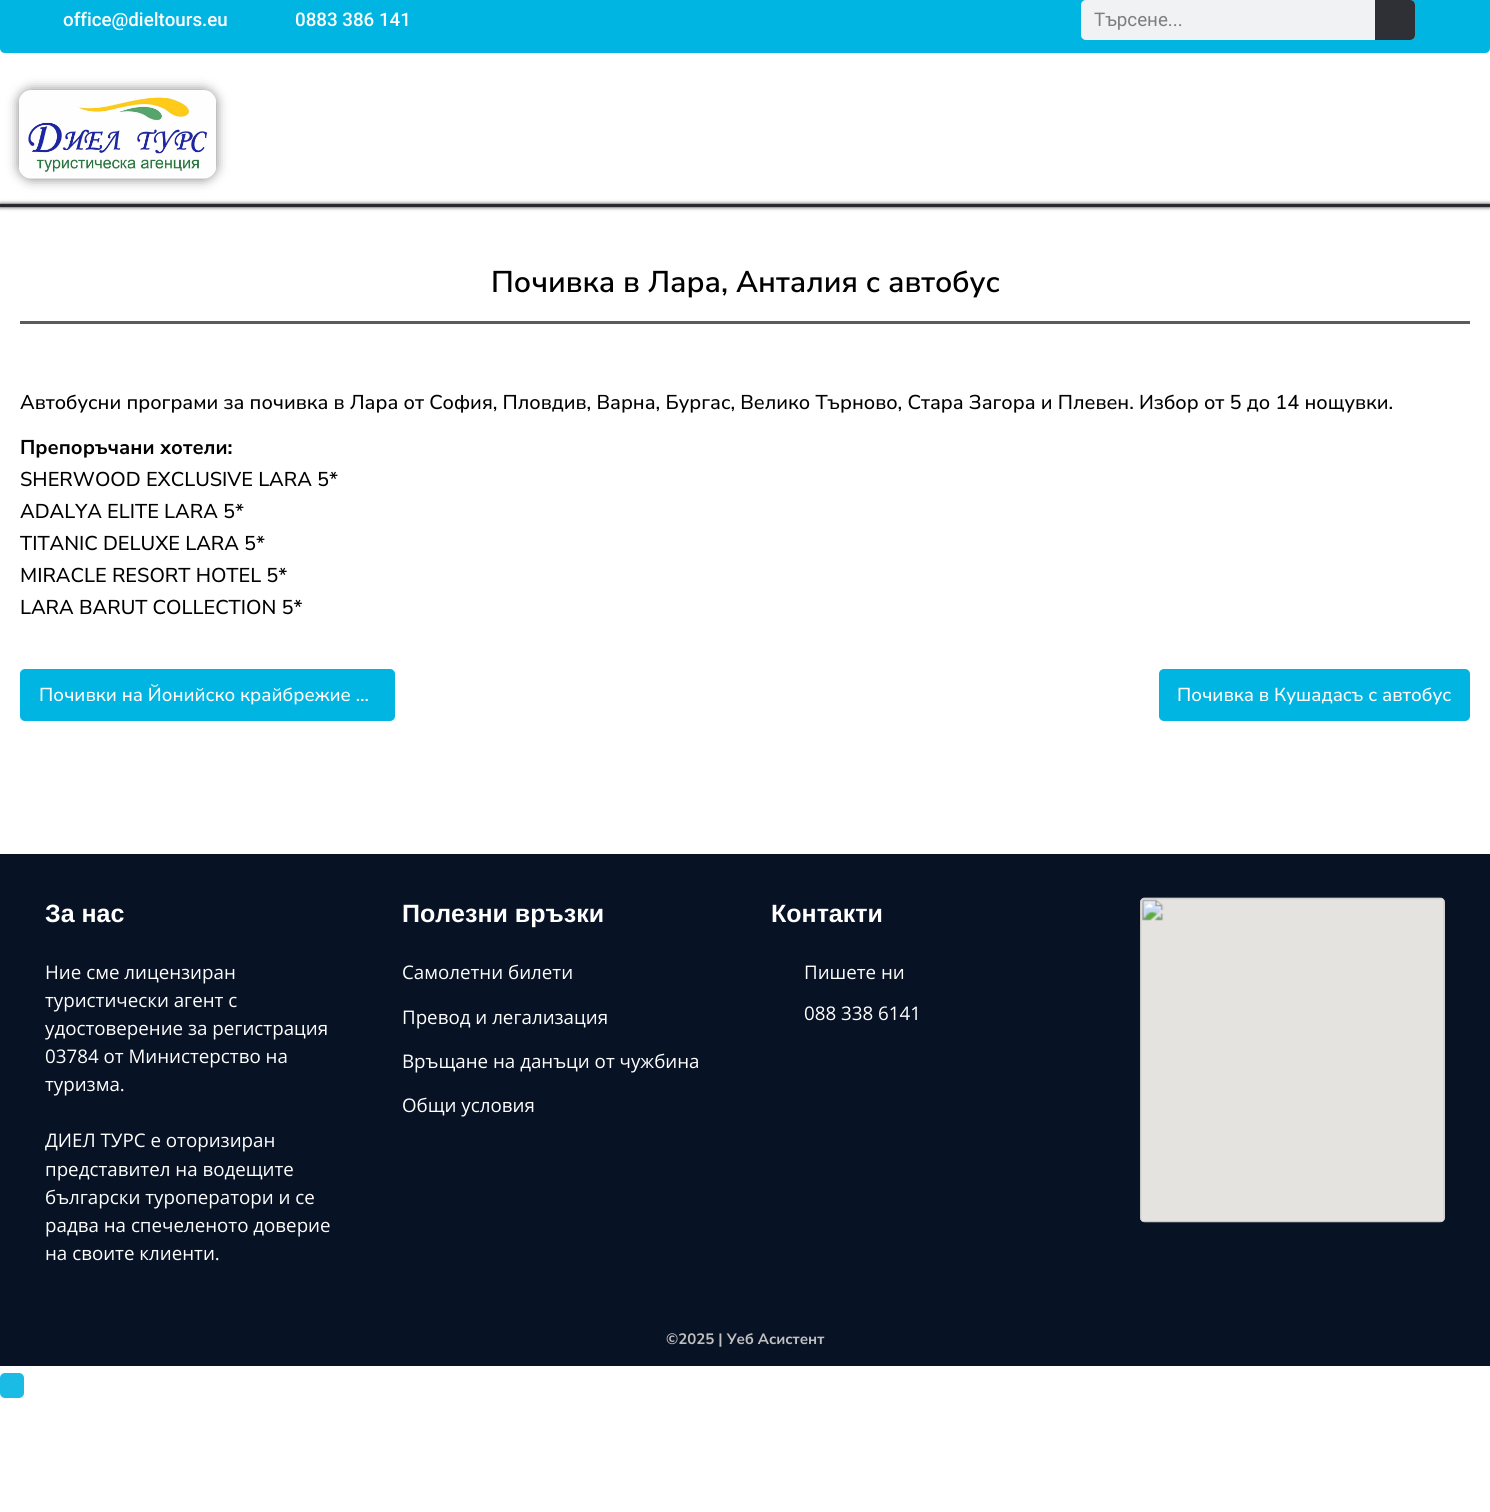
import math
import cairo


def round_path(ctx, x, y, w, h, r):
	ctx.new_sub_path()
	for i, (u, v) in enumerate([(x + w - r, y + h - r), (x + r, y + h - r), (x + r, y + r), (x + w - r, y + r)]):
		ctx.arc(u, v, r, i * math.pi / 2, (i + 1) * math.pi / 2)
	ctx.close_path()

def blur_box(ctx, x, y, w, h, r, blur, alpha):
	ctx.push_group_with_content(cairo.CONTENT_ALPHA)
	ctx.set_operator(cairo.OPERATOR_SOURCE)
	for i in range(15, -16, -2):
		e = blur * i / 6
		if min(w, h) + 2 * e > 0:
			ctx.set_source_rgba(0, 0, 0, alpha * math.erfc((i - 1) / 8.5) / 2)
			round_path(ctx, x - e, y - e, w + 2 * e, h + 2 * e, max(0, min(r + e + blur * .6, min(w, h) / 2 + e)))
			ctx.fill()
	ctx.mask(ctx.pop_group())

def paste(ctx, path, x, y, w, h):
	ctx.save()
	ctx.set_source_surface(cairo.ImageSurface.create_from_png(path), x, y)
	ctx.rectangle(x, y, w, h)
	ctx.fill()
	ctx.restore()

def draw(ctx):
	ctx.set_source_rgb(1, 1, 1)
	ctx.paint()
	ctx.set_source_rgb(0.184, 0.188, 0.208)
	ctx.rectangle(0, 204, 1490, 3)
	ctx.fill()
	ctx.set_source_rgb(0.004, 0.71, 0.886)
	ctx.new_path()
	ctx.move_to(0, -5)
	ctx.line_to(1490, -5)
	ctx.line_to(1490, 48)
	ctx.curve_to(1490, 51, 1488, 53, 1485, 53)
	ctx.line_to(5, 53)
	ctx.curve_to(2, 53, 0, 51, 0, 48)
	ctx.close_path()
	ctx.fill()
	ctx.select_font_face('Roboto Medium')
	ctx.set_font_size(18.75)
	ctx.set_source_rgb(1, 1, 1)
	ctx.move_to(63, 26)
	ctx.show_text('office@dieltours.eu')
	ctx.move_to(295, 26)
	ctx.show_text('0883 386 141')
	ctx.set_source_rgb(0.945, 0.949, 0.953)
	round_path(ctx, 1081, 0, 334, 40, 5)
	ctx.fill()
	ctx.select_font_face('Roboto')
	ctx.set_source_rgb(0.49, 0.494, 0.506)
	ctx.move_to(1094, 26)
	ctx.show_text('Търсене...')
	ctx.set_source_rgb(0.184, 0.188, 0.208)
	ctx.new_path()
	ctx.move_to(1375, 0)
	ctx.line_to(1410, 0)
	ctx.curve_to(1413, 0, 1415, 2, 1415, 5)
	ctx.line_to(1415, 35)
	ctx.curve_to(1415, 38, 1413, 40, 1410, 40)
	ctx.line_to(1375, 40)
	ctx.close_path()
	ctx.fill()
	ctx.set_source_rgb(0, 0, 0)
	blur_box(ctx, 19, 90, 197, 89, 13, 6, 0.5)
	paste(ctx, 'media/1.png', 19, 90, 197, 89)
	ctx.set_source_rgb(0.149, 0.149, 0.165)
	blur_box(ctx, 0, 204, 1490, 3, 0, 2, 1)
	ctx.set_source_rgb(0.357, 0.357, 0.357)
	ctx.rectangle(20, 321, 1450, 3)
	ctx.fill()
	ctx.select_font_face('Nunito Sans SemiBold')
	ctx.set_font_size(30)
	ctx.set_source_rgb(0, 0, 0)
	ctx.move_to(491, 292)
	ctx.show_text('Почивка в Лара, Анталия с автобус')
	ctx.select_font_face('Nunito Sans Medium')
	ctx.set_font_size(20)
	ctx.move_to(20, 409)
	ctx.show_text('Автобусни програми за почивка в Лара от София, Пловдив, Варна, Бургас, Велико Търново, Стара Загора и Плевен. Избор от 5 до 14 нощувки.')
	ctx.select_font_face('Nunito Sans', cairo.FONT_SLANT_NORMAL, cairo.FONT_WEIGHT_BOLD)
	ctx.move_to(20, 454)
	ctx.show_text('Препоръчани хотели:')
	ctx.select_font_face('Nunito Sans Medium')
	for x, y, s in [
		(20, 486, 'SHERWOOD EXCLUSIVE LARA 5*'),
		(20, 518, 'ADALYA ELITE LARA 5*'),
		(20, 550, 'TITANIC DELUXE LARA 5*'),
		(20, 582, 'MIRACLE RESORT HOTEL 5*'),
		(20, 614, 'LARA BARUT COLLECTION 5*'),
	]:
		ctx.move_to(x, y)
		ctx.show_text(s)
	ctx.set_source_rgb(0.004, 0.71, 0.886)
	round_path(ctx, 20, 669, 375, 52, 5)
	ctx.fill()
	ctx.set_font_size(18.75)
	ctx.set_source_rgb(1, 1, 1)
	ctx.move_to(39, 701)
	ctx.show_text('Почивки на Йонийско крайбрежие …')
	ctx.set_source_rgb(0.004, 0.71, 0.886)
	round_path(ctx, 1159, 669, 311, 52, 5)
	ctx.fill()
	ctx.set_source_rgb(1, 1, 1)
	ctx.move_to(1177, 701)
	ctx.show_text('Почивка в Кушадасъ с автобус')
	ctx.set_source_rgb(0.035, 0.071, 0.145)
	ctx.rectangle(0, 854, 1490, 512)
	ctx.fill()
	ctx.select_font_face('Liberation Sans', cairo.FONT_SLANT_NORMAL, cairo.FONT_WEIGHT_BOLD)
	ctx.set_font_size(25)
	ctx.set_source_rgb(1, 1, 1)
	ctx.move_to(45, 922)
	ctx.show_text('За нас')
	ctx.select_font_face('Open Sans')
	ctx.set_font_size(18.75)
	for x, y, s in [
		(45, 979, 'Ние сме лицензиран'),
		(45, 1007, 'туристически агент с'),
		(45, 1035, 'удостоверение за регистрация'),
		(45, 1063, '03784 от Министерство на'),
		(45, 1091, 'туризма.'),
		(45, 1147, 'ДИЕЛ ТУРС e оторизиран'),
		(45, 1176, 'представител на водещите'),
		(45, 1204, 'български туроператори и се'),
		(45, 1232, 'радва на спечеленото доверие'),
		(45, 1260, 'на своите клиенти.'),
	]:
		ctx.move_to(x, y)
		ctx.show_text(s)
	ctx.select_font_face('Liberation Sans', cairo.FONT_SLANT_NORMAL, cairo.FONT_WEIGHT_BOLD)
	ctx.set_font_size(25)
	ctx.move_to(402, 922)
	ctx.show_text('Полезни връзки')
	ctx.select_font_face('Open Sans')
	ctx.set_font_size(18.75)
	for x, y, s in [
		(402, 979, 'Самолетни билети'),
		(402, 1024, 'Превод и легализация'),
		(402, 1068, 'Връщане на данъци от чужбина'),
		(402, 1112, 'Общи условия'),
	]:
		ctx.move_to(x, y)
		ctx.show_text(s)
	ctx.select_font_face('Liberation Sans', cairo.FONT_SLANT_NORMAL, cairo.FONT_WEIGHT_BOLD)
	ctx.set_font_size(25)
	ctx.move_to(771, 922)
	ctx.show_text('Контакти')
	ctx.select_font_face('Open Sans')
	ctx.set_font_size(18.75)
	ctx.move_to(804, 979)
	ctx.show_text('Пишете ни')
	ctx.move_to(804, 1020)
	ctx.show_text('088 338 6141')
	paste(ctx, 'media/2.png', 1140, 897, 305, 326)
	ctx.select_font_face('Nunito Sans', cairo.FONT_SLANT_NORMAL, cairo.FONT_WEIGHT_BOLD)
	ctx.set_font_size(15)
	ctx.set_source_rgb(0.753, 0.753, 0.753)
	ctx.move_to(666, 1344)
	ctx.show_text('©2025 | Уеб Асистент')
	ctx.set_source_rgb(0.102, 0.737, 0.898)
	round_path(ctx, 0, 1373, 24, 25, 5)
	ctx.fill()


surface = cairo.ImageSurface(cairo.FORMAT_RGB24, 1490, 1512)
ctx = cairo.Context(surface)
options = cairo.FontOptions()
options.set_hint_metrics(cairo.HINT_METRICS_OFF)
options.set_hint_style(cairo.HINT_STYLE_NONE)
ctx.set_font_options(options)
ctx.set_miter_limit(4)
draw(ctx)
surface.write_to_png('image.png')
